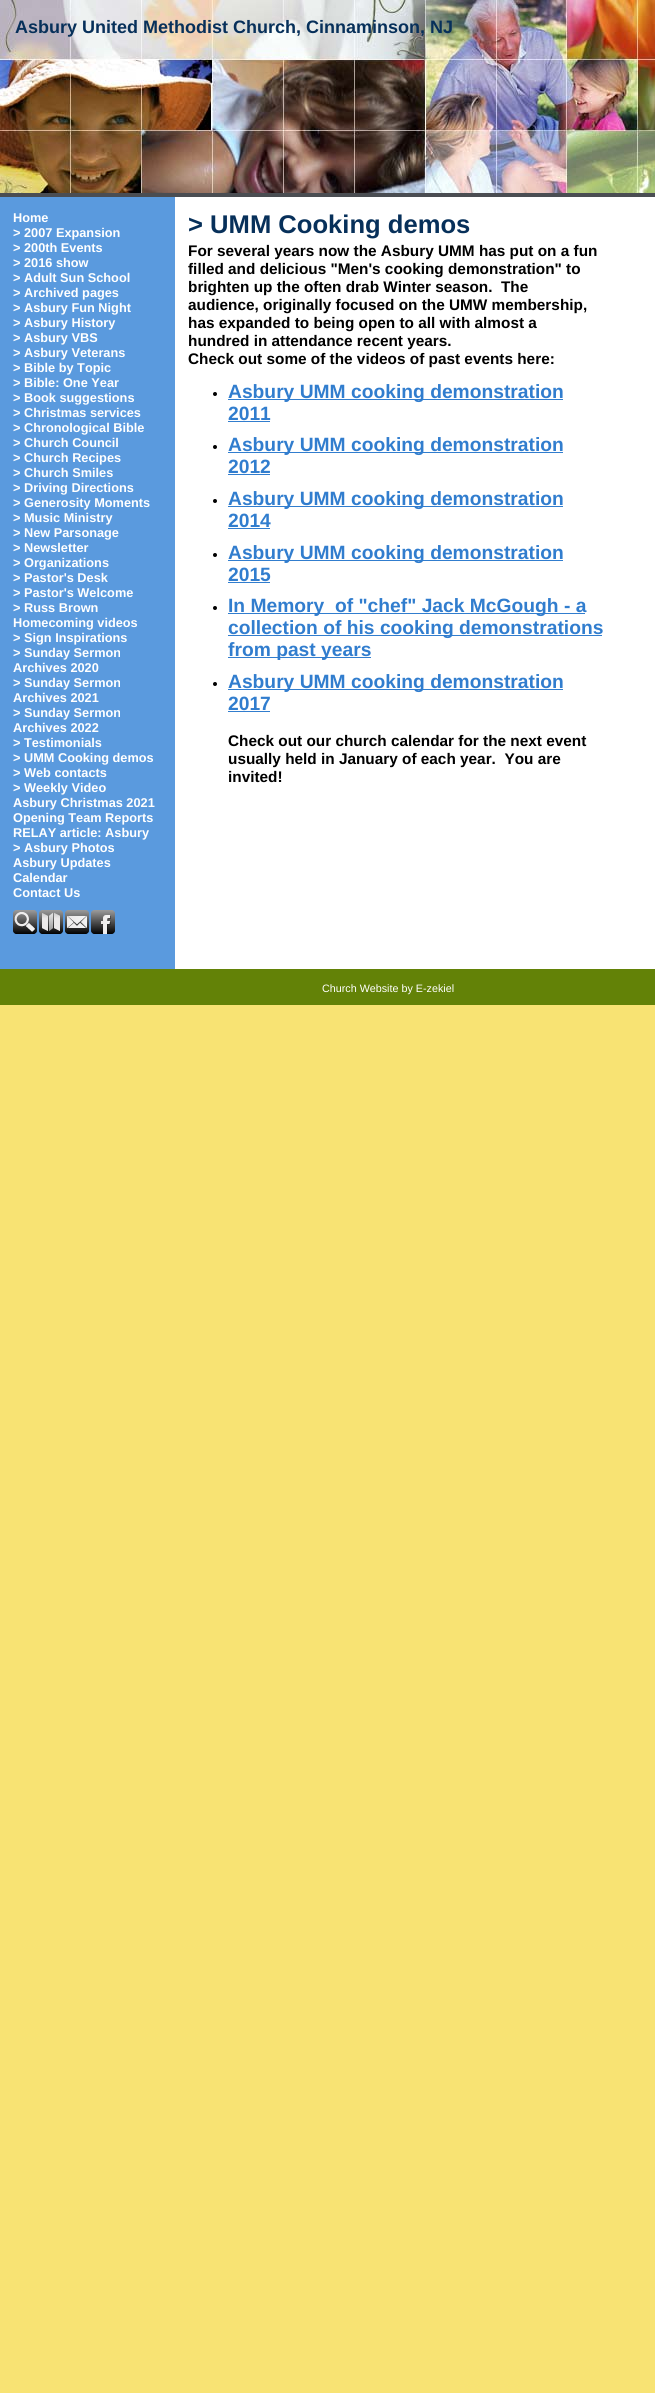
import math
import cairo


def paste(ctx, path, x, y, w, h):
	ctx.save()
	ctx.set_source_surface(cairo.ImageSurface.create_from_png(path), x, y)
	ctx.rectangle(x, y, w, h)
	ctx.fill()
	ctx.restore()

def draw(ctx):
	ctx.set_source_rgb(0.969, 0.89, 0.451)
	ctx.paint()
	ctx.set_source_rgb(1, 1, 1)
	ctx.rectangle(175, 197, 480, 772)
	ctx.fill()
	paste(ctx, 'media/1.png', 0, 0, 655, 193)
	ctx.set_source_rgb(0.29, 0.302, 0.322)
	ctx.rectangle(0, 193, 655, 4)
	ctx.fill()
	ctx.select_font_face('Liberation Sans', cairo.FONT_SLANT_NORMAL, cairo.FONT_WEIGHT_BOLD)
	ctx.set_font_size(18)
	ctx.set_source_rgb(0.031, 0.188, 0.353)
	ctx.move_to(15, 33)
	ctx.show_text('Asbury United Methodist Church, Cinnaminson, NJ')
	ctx.set_source_rgb(0.353, 0.604, 0.871)
	ctx.rectangle(0, 197, 175, 772)
	ctx.fill()
	ctx.set_font_size(12.75)
	ctx.set_source_rgb(1, 1, 1)
	for x, y, s in [
		(13, 222, 'Home'),
		(13, 237, '> 2007 Expansion'),
		(13, 252, '> 200th Events'),
		(13, 267, '> 2016 show'),
		(13, 282, '> Adult Sun School'),
		(13, 297, '> Archived pages'),
		(13, 312, '> Asbury Fun Night'),
		(13, 327, '> Asbury History'),
		(13, 342, '> Asbury VBS'),
		(13, 357, '> Asbury Veterans'),
		(13, 372, '> Bible by Topic'),
		(13, 387, '> Bible: One Year'),
		(13, 402, '> Book suggestions'),
		(13, 417, '> Christmas services'),
		(13, 432, '> Chronological Bible'),
		(13, 447, '> Church Council'),
		(13, 462, '> Church Recipes'),
		(13, 477, '> Church Smiles'),
		(13, 492, '> Driving Directions'),
		(13, 507, '> Generosity Moments'),
		(13, 522, '> Music Ministry'),
		(13, 537, '> New Parsonage'),
		(13, 552, '> Newsletter'),
		(13, 567, '> Organizations'),
		(13, 582, '> Pastor\'s Desk'),
		(13, 597, '> Pastor\'s Welcome'),
		(13, 612, '> Russ Brown'),
		(13, 627, 'Homecoming videos'),
		(13, 642, '> Sign Inspirations'),
		(13, 657, '> Sunday Sermon'),
		(13, 672, 'Archives 2020'),
		(13, 687, '> Sunday Sermon'),
		(13, 702, 'Archives 2021'),
		(13, 717, '> Sunday Sermon'),
		(13, 732, 'Archives 2022'),
		(13, 747, '> Testimonials'),
		(13, 762, '> UMM Cooking demos'),
		(13, 777, '> Web contacts'),
		(13, 792, '> Weekly Video'),
		(13, 807, 'Asbury Christmas 2021'),
		(13, 822, 'Opening Team Reports'),
		(13, 837, 'RELAY article: Asbury'),
		(13, 852, '> Asbury Photos'),
		(13, 867, 'Asbury Updates'),
		(13, 882, 'Calendar'),
		(13, 897, 'Contact Us'),
	]:
		ctx.move_to(x, y)
		ctx.show_text(s)
	paste(ctx, 'media/2.png', 13, 910, 24, 24)
	paste(ctx, 'media/3.png', 39, 910, 24, 24)
	paste(ctx, 'media/4.png', 65, 910, 24, 24)
	paste(ctx, 'media/5.png', 91, 910, 24, 24)
	ctx.set_font_size(25.6)
	ctx.set_source_rgb(0.031, 0.188, 0.353)
	ctx.move_to(188, 233)
	ctx.show_text('> UMM Cooking demos')
	ctx.set_font_size(15.35)
	ctx.set_source_rgb(0, 0, 0)
	for x, y, s in [
		(188, 256, 'For several years now the Asbury UMM has put on a fun'),
		(188, 274, 'filled and delicious "Men\'s cooking demonstration" to'),
		(188, 292, 'brighten up the often drab Winter season.  The'),
		(188, 310, 'audience, originally focused on the UMW membership,'),
		(188, 328, 'has expanded to being open to all with almost a'),
		(188, 346, 'hundred in attendance recent years.'),
		(188, 364, 'Check out some of the videos of past events here:'),
	]:
		ctx.move_to(x, y)
		ctx.show_text(s)
	ctx.new_path()
	ctx.arc(215, 394, 2, 0, 2 * math.pi)
	ctx.fill()
	ctx.set_source_rgb(0.192, 0.49, 0.808)
	ctx.rectangle(228, 399, 335, 1)
	ctx.fill()
	ctx.set_font_size(19.25)
	ctx.move_to(228, 398)
	ctx.show_text('Asbury UMM cooking demonstration')
	ctx.move_to(228, 420)
	ctx.show_text('2011')
	ctx.rectangle(228, 421, 42, 1)
	ctx.fill()
	ctx.set_source_rgb(0, 0, 0)
	ctx.arc(215, 447, 2, 0, 2 * math.pi)
	ctx.fill()
	ctx.set_source_rgb(0.192, 0.49, 0.808)
	ctx.rectangle(228, 452, 335, 1)
	ctx.fill()
	ctx.move_to(228, 451)
	ctx.show_text('Asbury UMM cooking demonstration')
	ctx.move_to(228, 473)
	ctx.show_text('2012')
	ctx.rectangle(228, 474, 42, 1)
	ctx.fill()
	ctx.set_source_rgb(0, 0, 0)
	ctx.arc(215, 501, 2, 0, 2 * math.pi)
	ctx.fill()
	ctx.set_source_rgb(0.192, 0.49, 0.808)
	ctx.rectangle(228, 506, 335, 1)
	ctx.fill()
	ctx.move_to(228, 505)
	ctx.show_text('Asbury UMM cooking demonstration')
	ctx.move_to(228, 527)
	ctx.show_text('2014')
	ctx.rectangle(228, 528, 42, 1)
	ctx.fill()
	ctx.set_source_rgb(0, 0, 0)
	ctx.arc(215, 555, 2, 0, 2 * math.pi)
	ctx.fill()
	ctx.set_source_rgb(0.192, 0.49, 0.808)
	ctx.rectangle(228, 560, 335, 1)
	ctx.fill()
	ctx.move_to(228, 559)
	ctx.show_text('Asbury UMM cooking demonstration')
	ctx.move_to(228, 581)
	ctx.show_text('2015')
	ctx.rectangle(228, 582, 42, 1)
	ctx.fill()
	ctx.set_source_rgb(0, 0, 0)
	ctx.arc(215, 608, 2, 0, 2 * math.pi)
	ctx.fill()
	ctx.set_source_rgb(0.192, 0.49, 0.808)
	ctx.rectangle(228, 613, 357, 1)
	ctx.fill()
	ctx.move_to(228, 612)
	ctx.show_text('In Memory  of "chef" Jack McGough - a')
	ctx.rectangle(228, 635, 374, 1)
	ctx.fill()
	ctx.move_to(228, 634)
	ctx.show_text('collection of his cooking demonstrations')
	ctx.rectangle(228, 657, 143, 1)
	ctx.fill()
	ctx.move_to(228, 656)
	ctx.show_text('from past years')
	ctx.set_source_rgb(0, 0, 0)
	ctx.new_path()
	ctx.arc(215, 684, 2, 0, 2 * math.pi)
	ctx.fill()
	ctx.set_source_rgb(0.192, 0.49, 0.808)
	ctx.rectangle(228, 689, 335, 1)
	ctx.fill()
	ctx.move_to(228, 688)
	ctx.show_text('Asbury UMM cooking demonstration')
	ctx.move_to(228, 710)
	ctx.show_text('2017')
	ctx.rectangle(228, 711, 42, 1)
	ctx.fill()
	ctx.set_font_size(15.35)
	ctx.set_source_rgb(0, 0, 0)
	for x, y, s in [
		(228, 746, 'Check out our church calendar for the next event'),
		(228, 764, 'usually held in January of each year.  You are'),
		(228, 782, 'invited!'),
	]:
		ctx.move_to(x, y)
		ctx.show_text(s)
	ctx.set_source_rgb(0.388, 0.51, 0.031)
	ctx.rectangle(0, 969, 655, 36)
	ctx.fill()
	ctx.select_font_face('Liberation Sans')
	ctx.set_font_size(10.75)
	ctx.set_source_rgb(1, 1, 1)
	ctx.move_to(322, 992)
	ctx.show_text('Church Website by E-zekiel')


surface = cairo.ImageSurface(cairo.FORMAT_RGB24, 655, 2393)
ctx = cairo.Context(surface)
options = cairo.FontOptions()
options.set_hint_metrics(cairo.HINT_METRICS_OFF)
options.set_hint_style(cairo.HINT_STYLE_NONE)
ctx.set_font_options(options)
ctx.set_miter_limit(4)
draw(ctx)
surface.write_to_png('image.png')
